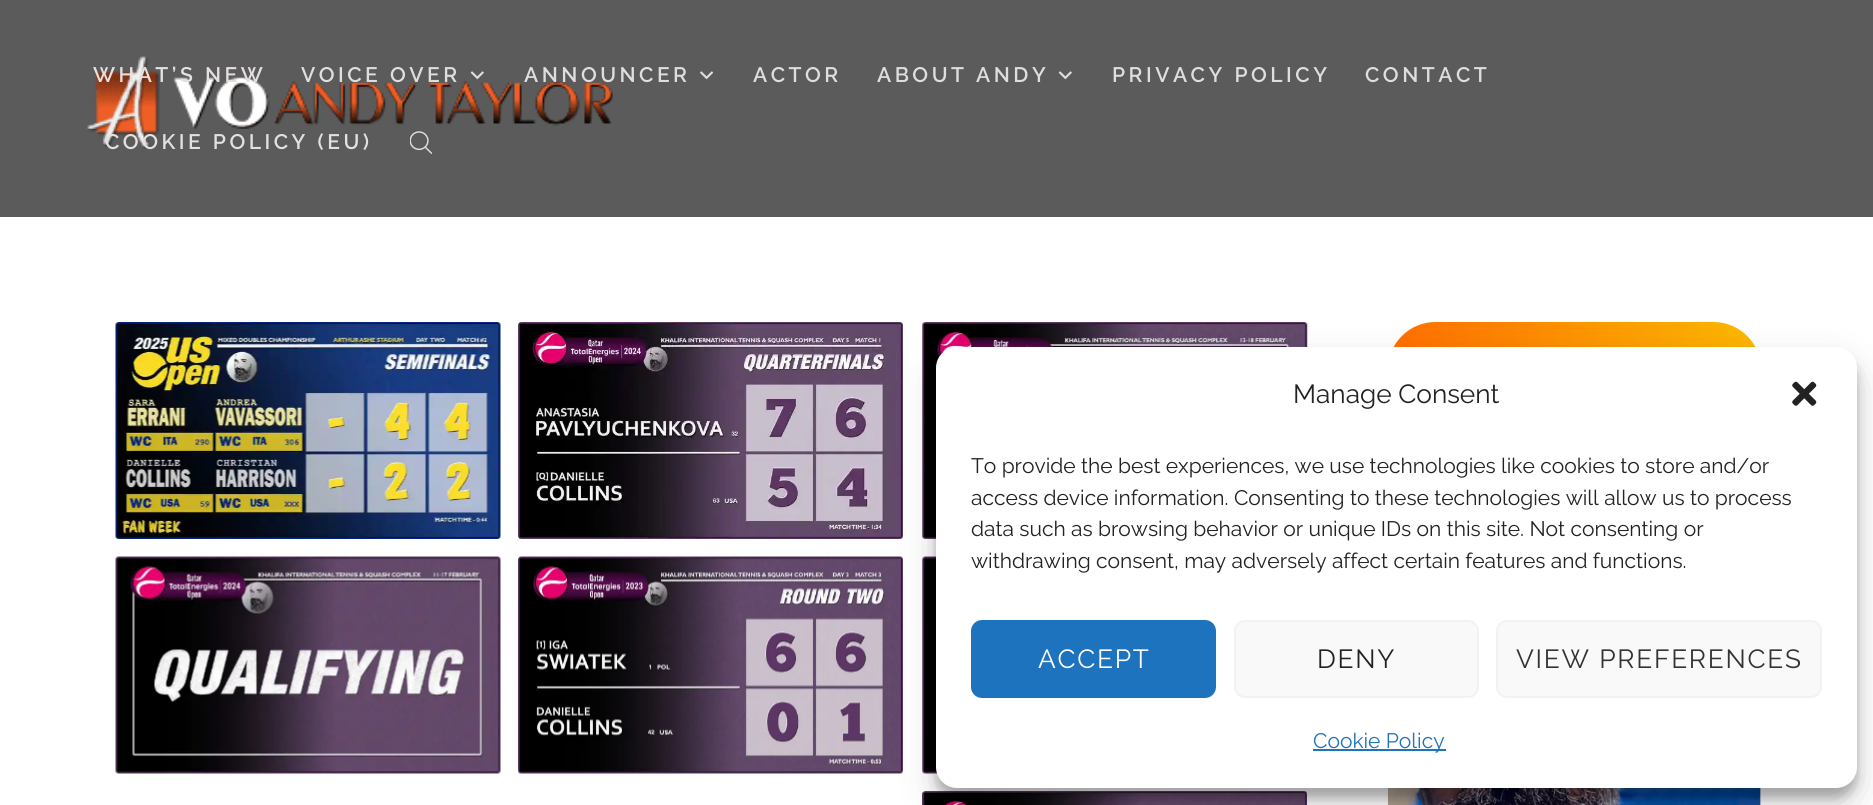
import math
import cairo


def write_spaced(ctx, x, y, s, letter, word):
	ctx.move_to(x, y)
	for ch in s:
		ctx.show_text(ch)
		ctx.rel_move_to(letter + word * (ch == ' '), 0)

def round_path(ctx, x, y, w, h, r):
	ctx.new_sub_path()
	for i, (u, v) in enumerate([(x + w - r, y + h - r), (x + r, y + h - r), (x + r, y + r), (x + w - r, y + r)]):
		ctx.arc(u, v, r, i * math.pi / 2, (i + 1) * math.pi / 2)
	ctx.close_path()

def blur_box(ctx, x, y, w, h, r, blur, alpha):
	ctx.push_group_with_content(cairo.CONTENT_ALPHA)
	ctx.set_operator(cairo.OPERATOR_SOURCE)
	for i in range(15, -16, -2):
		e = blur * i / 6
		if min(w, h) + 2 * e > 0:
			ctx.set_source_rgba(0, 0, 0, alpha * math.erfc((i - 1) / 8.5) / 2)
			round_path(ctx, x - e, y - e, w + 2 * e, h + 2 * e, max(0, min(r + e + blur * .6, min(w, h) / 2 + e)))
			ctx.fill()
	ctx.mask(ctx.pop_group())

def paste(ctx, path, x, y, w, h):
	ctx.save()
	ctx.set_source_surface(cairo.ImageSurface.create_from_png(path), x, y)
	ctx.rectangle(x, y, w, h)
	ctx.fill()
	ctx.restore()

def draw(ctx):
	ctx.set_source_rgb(1, 1, 1)
	ctx.paint()
	ctx.set_source_rgb(0.902, 0.902, 0.902)
	ctx.rectangle(1760, 788, 1, 17)
	ctx.fill()
	ctx.set_source_rgb(0.357, 0.357, 0.357)
	ctx.rectangle(0, 0, 1873, 217)
	ctx.fill()
	paste(ctx, 'media/1.png', 87, 56, 526, 93)
	ctx.select_font_face('Raleway SemiBold')
	ctx.set_font_size(21)
	ctx.set_source_rgb(0.894, 0.878, 0.875)
	write_spaced(ctx, 93, 82, 'WHAT’S NEW', 3.5, 0)
	ctx.set_source_rgb(0.871, 0.871, 0.871)
	write_spaced(ctx, 301, 82, 'VOICE OVER', 3.5, 0)
	paste(ctx, 'media/2.png', 470, 71, 14, 9)
	write_spaced(ctx, 524, 82, 'ANNOUNCER', 3.5, 0)
	paste(ctx, 'media/3.png', 700, 71, 14, 9)
	write_spaced(ctx, 753, 82, 'ACTOR', 3.5, 0)
	write_spaced(ctx, 877, 82, 'ABOUT ANDY', 3.5, 0)
	paste(ctx, 'media/2.png', 1058, 71, 14, 9)
	write_spaced(ctx, 1112, 82, 'PRIVACY POLICY', 3.5, 0)
	write_spaced(ctx, 1365, 82, 'CONTACT', 3.5, 0)
	ctx.set_source_rgb(0.894, 0.878, 0.875)
	write_spaced(ctx, 105, 149, 'COOKIE POLICY (EU)', 3.5, 0)
	paste(ctx, 'media/4.png', 410, 131, 22, 23)
	paste(ctx, 'media/5.png', 115, 322, 386, 217)
	paste(ctx, 'media/6.png', 518, 322, 385, 217)
	paste(ctx, 'media/7.png', 922, 322, 386, 217)
	paste(ctx, 'media/8.png', 115, 556, 386, 218)
	paste(ctx, 'media/9.png', 518, 556, 385, 218)
	paste(ctx, 'media/10.png', 922, 556, 16, 218)
	paste(ctx, 'media/11.png', 922, 791, 385, 14)
	gradient = cairo.LinearGradient(1761, 323, 1388, 416)
	gradient.add_color_stop_rgba(0, 0.988, 0.725, 0, 1)
	gradient.add_color_stop_rgba(1, 1, 0.412, 0, 1)
	ctx.set_source(gradient)
	round_path(ctx, 1388, 322, 373, 95, 47.5)
	ctx.fill()
	paste(ctx, 'media/12.png', 1387, 788, 374, 17)
	ctx.set_source_rgb(0, 0, 0)
	blur_box(ctx, 936, 357, 921, 441, 21, 5, 0.23)
	blur_box(ctx, 936, 364, 921, 441, 21, 17.5, 0.19)
	ctx.set_source_rgb(1, 1, 1)
	round_path(ctx, 936, 347, 921, 441, 21)
	ctx.fill()
	ctx.select_font_face('Raleway')
	ctx.set_font_size(26.25)
	ctx.set_source_rgb(0.133, 0.133, 0.133)
	ctx.move_to(1293, 403)
	ctx.show_text('Manage Consent')
	paste(ctx, 'media/13.png', 1792, 381, 25, 25)
	ctx.set_font_size(21)
	for x, y, s in [
		(971, 473, 'To provide the best experiences, we use technologies like cookies to store and/or'),
		(971, 505, 'access device information. Consenting to these technologies will allow us to process'),
		(971, 536, 'data such as browsing behavior or unique IDs on this site. Not consenting or'),
		(971, 568, 'withdrawing consent, may adversely affect certain features and functions.'),
	]:
		ctx.move_to(x, y)
		ctx.show_text(s)
	ctx.set_source_rgb(0.118, 0.451, 0.745)
	round_path(ctx, 972, 621, 243, 76, 10)
	ctx.fill_preserve()
	ctx.stroke()
	ctx.set_font_size(26.25)
	ctx.set_source_rgb(1, 1, 1)
	write_spaced(ctx, 1038, 668, 'ACCEPT', 1.75, 0)
	ctx.set_source_rgb(0.976, 0.976, 0.976)
	round_path(ctx, 1235, 621, 243, 76, 10)
	ctx.fill_preserve()
	ctx.set_source_rgb(0.949, 0.949, 0.949)
	ctx.stroke()
	ctx.set_source_rgb(0.133, 0.133, 0.133)
	write_spaced(ctx, 1317, 668, 'DENY', 1.75, 0)
	ctx.set_source_rgb(0.976, 0.976, 0.976)
	round_path(ctx, 1497, 621, 324, 76, 10)
	ctx.fill_preserve()
	ctx.set_source_rgb(0.949, 0.949, 0.949)
	ctx.stroke()
	ctx.set_source_rgb(0.2, 0.2, 0.2)
	write_spaced(ctx, 1516, 668, 'VIEW PREFERENCES', 1.75, 0)
	ctx.set_source_rgb(0.118, 0.451, 0.745)
	ctx.rectangle(1313, 749, 133, 2)
	ctx.fill()
	ctx.set_font_size(21)
	ctx.move_to(1313, 748)
	ctx.show_text('Cookie Policy')


surface = cairo.ImageSurface(cairo.FORMAT_RGB24, 1873, 805)
ctx = cairo.Context(surface)
options = cairo.FontOptions()
options.set_hint_metrics(cairo.HINT_METRICS_OFF)
options.set_hint_style(cairo.HINT_STYLE_NONE)
ctx.set_font_options(options)
ctx.set_miter_limit(4)
draw(ctx)
surface.write_to_png('image.png')
